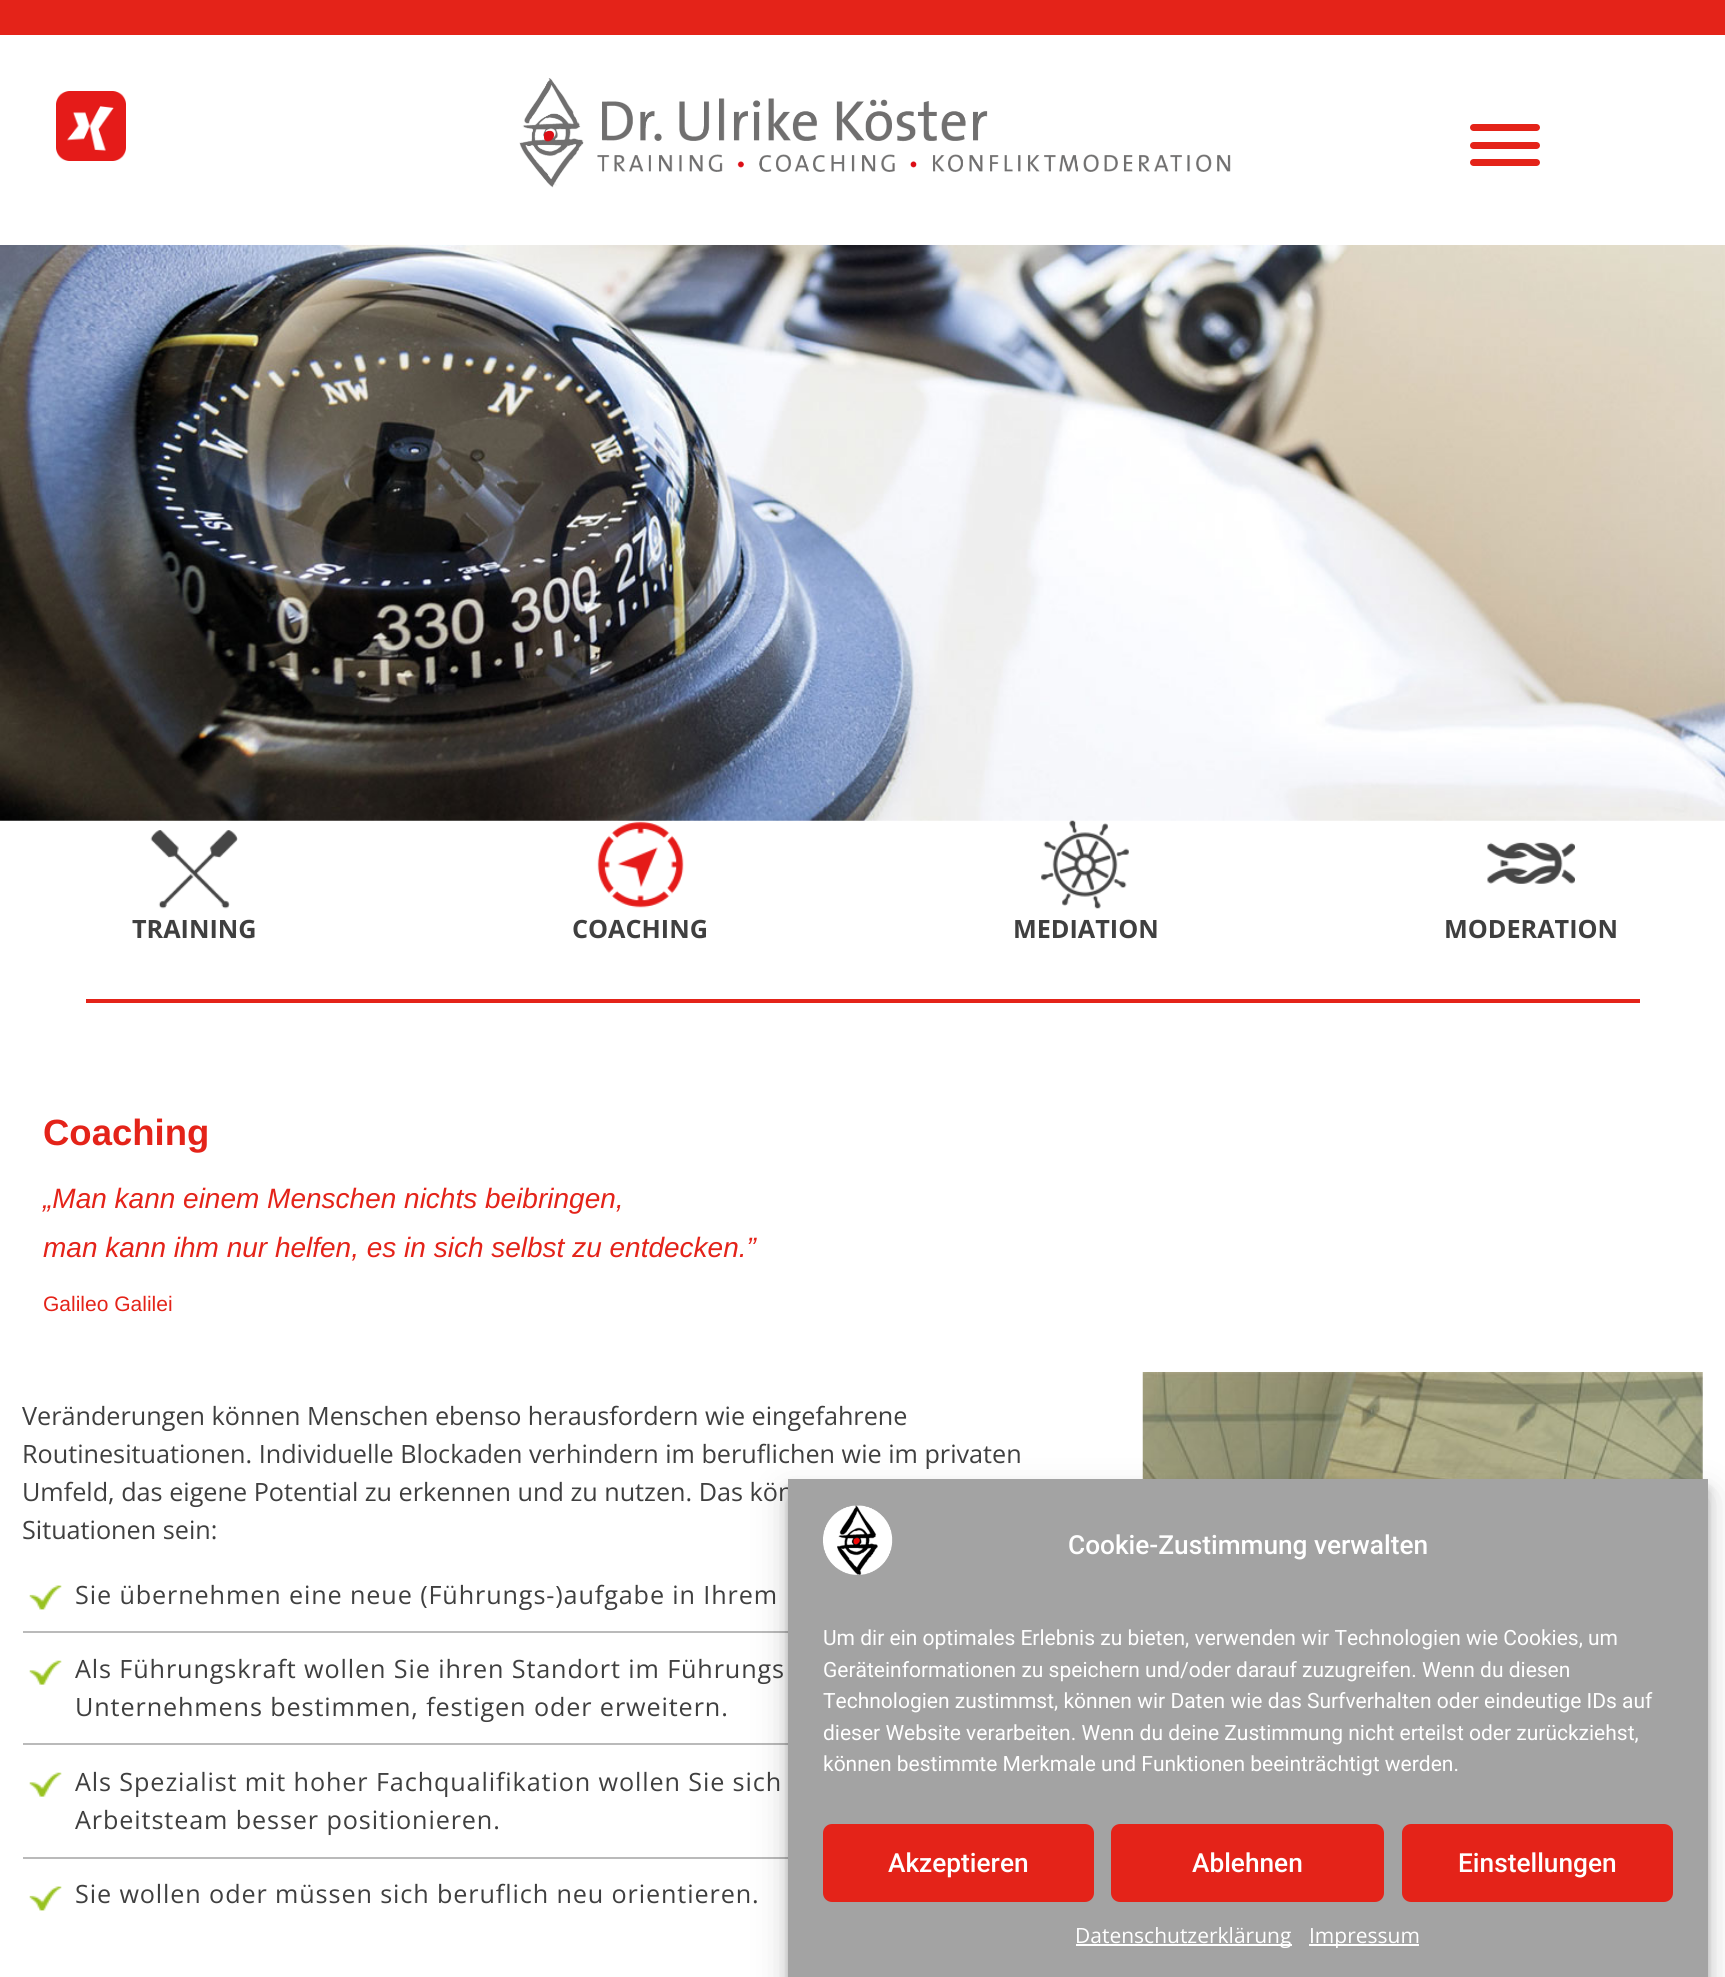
import math
import cairo


def write_spaced(ctx, x, y, s, letter, word):
	ctx.move_to(x, y)
	for ch in s:
		ctx.show_text(ch)
		ctx.rel_move_to(letter + word * (ch == ' '), 0)

def round_path(ctx, x, y, w, h, r):
	ctx.new_sub_path()
	for i, (u, v) in enumerate([(x + w - r, y + h - r), (x + r, y + h - r), (x + r, y + r), (x + w - r, y + r)]):
		ctx.arc(u, v, r, i * math.pi / 2, (i + 1) * math.pi / 2)
	ctx.close_path()

def blur_box(ctx, x, y, w, h, r, blur, alpha):
	ctx.push_group_with_content(cairo.CONTENT_ALPHA)
	ctx.set_operator(cairo.OPERATOR_SOURCE)
	for i in range(15, -16, -2):
		e = blur * i / 6
		if min(w, h) + 2 * e > 0:
			ctx.set_source_rgba(0, 0, 0, alpha * math.erfc((i - 1) / 8.5) / 2)
			round_path(ctx, x - e, y - e, w + 2 * e, h + 2 * e, max(0, min(r + e + blur * .6, min(w, h) / 2 + e)))
			ctx.fill()
	ctx.mask(ctx.pop_group())

def paste(ctx, path, x, y, w, h):
	ctx.save()
	ctx.set_source_surface(cairo.ImageSurface.create_from_png(path), x, y)
	ctx.rectangle(x, y, w, h)
	ctx.fill()
	ctx.restore()

def draw(ctx):
	ctx.set_source_rgb(1, 1, 1)
	ctx.paint()
	ctx.set_source_rgb(0.894, 0.137, 0.098)
	ctx.rectangle(0, 0, 1725, 35)
	ctx.fill()
	paste(ctx, 'media/1.png', 56, 91, 70, 70)
	paste(ctx, 'media/2.png', 519, 78, 712, 110)
	round_path(ctx, 1470, 142, 70, 7, 3.5)
	ctx.fill()
	round_path(ctx, 1470, 124, 70, 7, 3.5)
	ctx.fill()
	round_path(ctx, 1470, 159, 70, 7, 3.5)
	ctx.fill()
	paste(ctx, 'media/3.png', 0, 245, 1725, 576)
	paste(ctx, 'media/4.png', 150, 830, 88, 79)
	ctx.select_font_face('Open Sans', cairo.FONT_SLANT_NORMAL, cairo.FONT_WEIGHT_BOLD)
	ctx.set_font_size(25.2)
	ctx.set_source_rgb(0.247, 0.247, 0.247)
	ctx.move_to(132, 938)
	ctx.show_text('TRAINING')
	paste(ctx, 'media/5.png', 597, 821, 87, 87)
	ctx.move_to(572, 938)
	ctx.show_text('COACHING')
	paste(ctx, 'media/6.png', 1041, 820, 88, 89)
	ctx.move_to(1013, 938)
	ctx.show_text('MEDIATION')
	paste(ctx, 'media/7.png', 1487, 842, 88, 42)
	ctx.move_to(1444, 938)
	ctx.show_text('MODERATION')
	ctx.set_source_rgb(0.894, 0.137, 0.098)
	ctx.rectangle(86, 999, 1554, 4)
	ctx.fill()
	ctx.select_font_face('Liberation Sans', cairo.FONT_SLANT_NORMAL, cairo.FONT_WEIGHT_BOLD)
	ctx.set_font_size(36.5)
	ctx.move_to(43, 1145)
	ctx.show_text('Coaching')
	ctx.select_font_face('Liberation Sans', cairo.FONT_SLANT_ITALIC)
	ctx.set_font_size(28)
	ctx.move_to(43, 1208)
	ctx.show_text('„Man kann einem Menschen nichts beibringen,')
	ctx.move_to(43, 1257)
	ctx.show_text('man kann ihm nur helfen, es in sich selbst zu entdecken.”')
	ctx.select_font_face('Liberation Sans')
	ctx.set_font_size(21)
	ctx.move_to(43, 1311)
	ctx.show_text('Galileo Galilei')
	ctx.select_font_face('Open Sans')
	ctx.set_font_size(25.2)
	ctx.set_source_rgb(0.247, 0.247, 0.247)
	for x, y, s in [
		(22, 1425, 'Veränderungen können Menschen ebenso herausfordern wie eingefahrene'),
		(22, 1463, 'Routinesituationen. Individuelle Blockaden verhindern im beruflichen wie im privaten'),
		(22, 1501, 'Umfeld, das eigene Potential zu erkennen und zu nutzen. Das kön'),
		(22, 1539, 'Situationen sein:'),
	]:
		ctx.move_to(x, y)
		ctx.show_text(s)
	ctx.set_source_rgb(0.729, 0.729, 0.729)
	ctx.rectangle(23, 1631, 765, 2)
	ctx.fill()
	paste(ctx, 'media/8.png', 29, 1585, 33, 25)
	ctx.set_source_rgb(0.247, 0.247, 0.247)
	write_spaced(ctx, 75, 1604, 'Sie übernehmen eine neue (Führungs-)aufgabe in Ihrem', 0.88, 0)
	ctx.set_source_rgb(0.729, 0.729, 0.729)
	ctx.rectangle(23, 1743, 765, 2)
	ctx.fill()
	paste(ctx, 'media/9.png', 29, 1660, 33, 25)
	ctx.set_source_rgb(0.247, 0.247, 0.247)
	write_spaced(ctx, 75, 1678, 'Als Führungskraft wollen Sie ihren Standort im Führungs', 0.88, 0)
	write_spaced(ctx, 75, 1716, 'Unternehmens bestimmen, festigen oder erweitern.', 0.88, 0)
	ctx.set_source_rgb(0.729, 0.729, 0.729)
	ctx.rectangle(23, 1857, 765, 2)
	ctx.fill()
	paste(ctx, 'media/9.png', 29, 1772, 33, 25)
	ctx.set_source_rgb(0.247, 0.247, 0.247)
	write_spaced(ctx, 75, 1791, 'Als Spezialist mit hoher Fachqualifikation wollen Sie sich', 0.88, 0)
	write_spaced(ctx, 75, 1829, 'Arbeitsteam besser positionieren.', 0.88, 0)
	paste(ctx, 'media/8.png', 29, 1886, 33, 25)
	write_spaced(ctx, 75, 1903, 'Sie wollen oder müssen sich beruflich neu orientieren.', 0.88, 0)
	paste(ctx, 'media/10.png', 1142, 1372, 561, 107)
	ctx.set_source_rgb(0, 0, 0)
	blur_box(ctx, 788, 1489, 920, 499, 0, 5, 0.23)
	blur_box(ctx, 788, 1496, 920, 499, 0, 17.5, 0.19)
	ctx.set_source_rgb(0.639, 0.639, 0.639)
	ctx.rectangle(788, 1479, 920, 498)
	ctx.fill()
	paste(ctx, 'media/11.png', 823, 1505, 70, 70)
	ctx.select_font_face('Roboto Medium')
	ctx.set_font_size(26.25)
	ctx.set_source_rgb(1, 1, 1)
	ctx.move_to(1068, 1554)
	ctx.show_text('Cookie-Zustimmung verwalten')
	ctx.select_font_face('Roboto')
	ctx.set_font_size(21)
	for x, y, s in [
		(823, 1645, 'Um dir ein optimales Erlebnis zu bieten, verwenden wir Technologien wie Cookies, um'),
		(823, 1677, 'Geräteinformationen zu speichern und/oder darauf zuzugreifen. Wenn du diesen'),
		(823, 1708, 'Technologien zustimmst, können wir Daten wie das Surfverhalten oder eindeutige IDs auf'),
		(823, 1740, 'dieser Website verarbeiten. Wenn du deine Zustimmung nicht erteilst oder zurückziehst,'),
		(823, 1771, 'können bestimmte Merkmale und Funktionen beeinträchtigt werden.'),
	]:
		ctx.move_to(x, y)
		ctx.show_text(s)
	ctx.set_source_rgb(0.894, 0.137, 0.098)
	round_path(ctx, 824, 1825, 269, 76, 8)
	ctx.fill_preserve()
	ctx.stroke()
	ctx.select_font_face('Roboto Medium')
	ctx.set_font_size(26.25)
	ctx.set_source_rgb(1, 1, 1)
	ctx.move_to(888, 1872)
	ctx.show_text('Akzeptieren')
	ctx.set_source_rgb(0.894, 0.137, 0.098)
	round_path(ctx, 1112, 1825, 271, 76, 8)
	ctx.fill_preserve()
	ctx.stroke()
	ctx.set_source_rgb(1, 1, 1)
	ctx.move_to(1192, 1872)
	ctx.show_text('Ablehnen')
	ctx.set_source_rgb(0.894, 0.137, 0.098)
	round_path(ctx, 1403, 1825, 269, 76, 8)
	ctx.fill_preserve()
	ctx.stroke()
	ctx.set_source_rgb(1, 1, 1)
	ctx.move_to(1458, 1872)
	ctx.show_text('Einstellungen')
	ctx.rectangle(1076, 1944, 216, 2)
	ctx.fill()
	ctx.select_font_face('Open Sans')
	ctx.set_font_size(21)
	ctx.move_to(1075, 1943)
	ctx.show_text('Datenschutzerklärung')
	ctx.rectangle(1309, 1944, 110, 2)
	ctx.fill()
	ctx.move_to(1309, 1943)
	ctx.show_text('Impressum')


surface = cairo.ImageSurface(cairo.FORMAT_RGB24, 1725, 1977)
ctx = cairo.Context(surface)
options = cairo.FontOptions()
options.set_hint_metrics(cairo.HINT_METRICS_OFF)
options.set_hint_style(cairo.HINT_STYLE_NONE)
ctx.set_font_options(options)
ctx.set_miter_limit(4)
draw(ctx)
surface.write_to_png('image.png')
